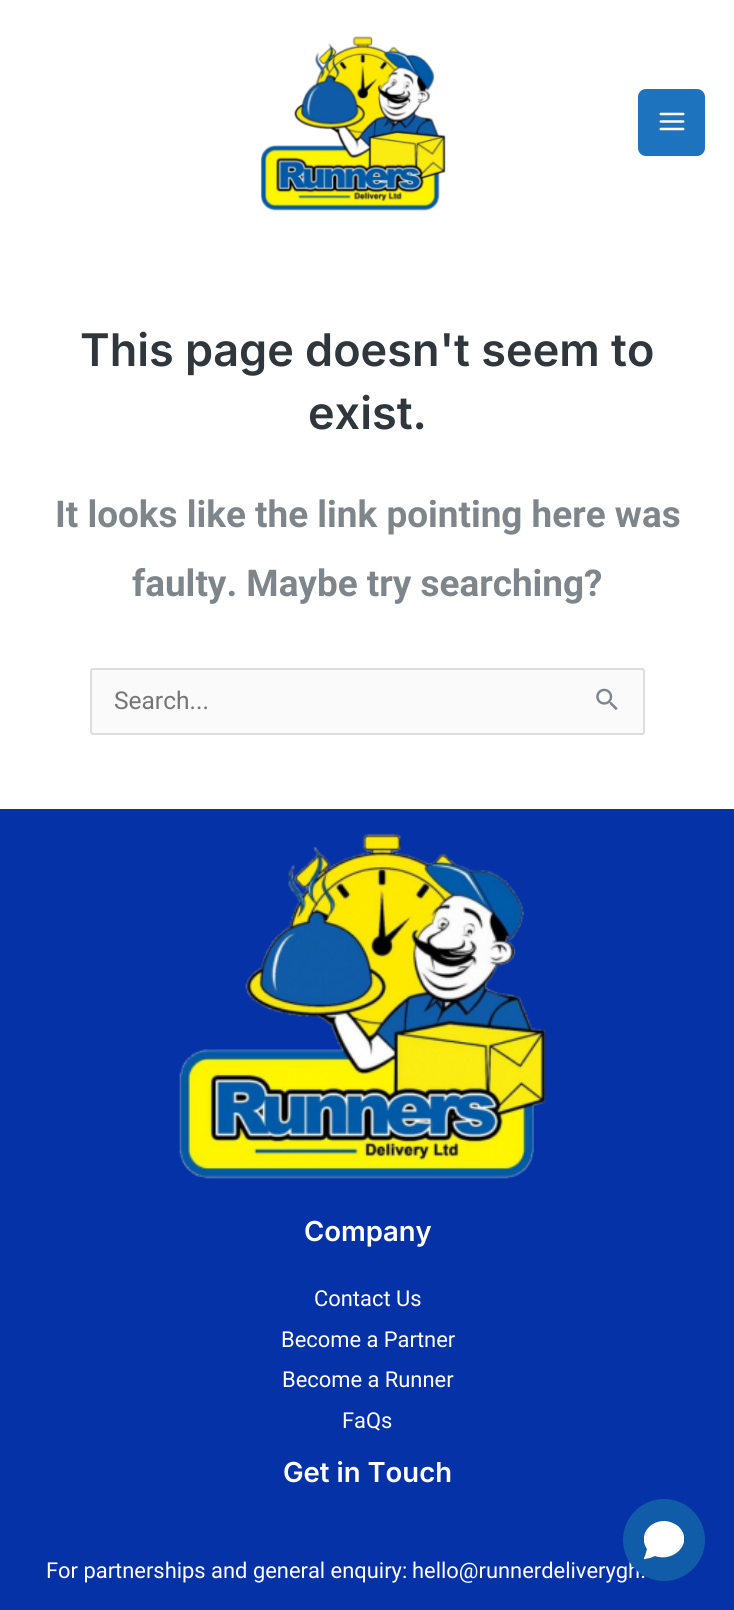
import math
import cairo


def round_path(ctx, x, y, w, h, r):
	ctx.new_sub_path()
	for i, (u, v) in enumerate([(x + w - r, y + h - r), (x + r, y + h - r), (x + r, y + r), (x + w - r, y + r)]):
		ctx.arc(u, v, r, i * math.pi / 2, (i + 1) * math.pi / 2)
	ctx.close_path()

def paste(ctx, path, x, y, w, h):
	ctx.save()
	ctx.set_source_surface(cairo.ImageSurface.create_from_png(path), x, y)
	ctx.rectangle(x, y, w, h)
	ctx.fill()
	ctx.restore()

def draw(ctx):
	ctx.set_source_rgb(1, 1, 1)
	ctx.paint()
	paste(ctx, 'media/1.png', 260, 36, 186, 175)
	ctx.set_source_rgb(0.118, 0.451, 0.745)
	round_path(ctx, 638, 89, 67, 67, 8)
	ctx.fill()
	paste(ctx, 'media/2.png', 659, 112, 26, 19)
	ctx.select_font_face('Inter SemiBold')
	ctx.set_font_size(45)
	ctx.set_source_rgb(0.184, 0.216, 0.239)
	ctx.move_to(80, 366)
	ctx.show_text('This page doesn\'t seem to')
	ctx.move_to(308, 429)
	ctx.show_text('exist.')
	ctx.select_font_face('Roboto', cairo.FONT_SLANT_NORMAL, cairo.FONT_WEIGHT_BOLD)
	ctx.set_font_size(36.9)
	ctx.set_source_rgb(0.494, 0.525, 0.549)
	ctx.move_to(55, 527)
	ctx.show_text('It looks like the link pointing here was')
	ctx.move_to(132, 596)
	ctx.show_text('faulty. Maybe try searching?')
	ctx.set_source_rgb(0.98, 0.98, 0.98)
	round_path(ctx, 91, 669, 553, 65, 2)
	ctx.fill_preserve()
	ctx.set_source_rgb(0.867, 0.867, 0.867)
	ctx.stroke()
	ctx.select_font_face('Roboto')
	ctx.set_font_size(24.5)
	ctx.set_source_rgb(0.459, 0.459, 0.459)
	ctx.move_to(114, 709)
	ctx.show_text('Search...')
	paste(ctx, 'media/3.png', 596, 688, 22, 23)
	ctx.set_source_rgb(0.02, 0.196, 0.655)
	ctx.rectangle(0, 809, 734, 801)
	ctx.fill()
	paste(ctx, 'media/4.png', 179, 833, 367, 346)
	ctx.select_font_face('Inter SemiBold')
	ctx.set_font_size(27.5)
	ctx.set_source_rgb(1, 1, 1)
	ctx.move_to(304, 1241)
	ctx.show_text('Company')
	ctx.select_font_face('Roboto')
	ctx.set_font_size(21.9)
	for x, y, s in [
		(314, 1306, 'Contact Us'),
		(281, 1347, 'Become a Partner'),
		(282, 1387, 'Become a Runner'),
		(342, 1428, 'FaQs'),
	]:
		ctx.move_to(x, y)
		ctx.show_text(s)
	ctx.select_font_face('Inter SemiBold')
	ctx.set_font_size(27.5)
	ctx.move_to(283, 1482)
	ctx.show_text('Get in Touch')
	ctx.select_font_face('Roboto')
	ctx.set_font_size(21.9)
	ctx.move_to(46, 1578)
	ctx.show_text('For partnerships and general enquiry:')
	ctx.move_to(412, 1578)
	ctx.show_text('hello@runnerdeliverygh.')
	ctx.set_source_rgb(0.063, 0.361, 0.659)
	ctx.new_path()
	ctx.arc(664, 1540, 41, 0, 2 * math.pi)
	ctx.fill()
	ctx.save()
	ctx.rectangle(644, 1520, 40, 40)
	ctx.clip()
	ctx.set_source_rgb(1, 1, 1)
	ctx.new_path()
	ctx.move_to(664, 1521)
	ctx.curve_to(649, 1521, 638, 1536, 647, 1549)
	ctx.line_to(645, 1556)
	ctx.curve_to(644, 1558, 642, 1560, 645, 1559)
	ctx.line_to(650, 1558)
	ctx.line_to(655, 1556)
	ctx.curve_to(674, 1563, 695, 1542, 678, 1526)
	ctx.curve_to(674, 1523, 669, 1521, 664, 1521)
	ctx.close_path()
	ctx.fill()
	ctx.restore()


surface = cairo.ImageSurface(cairo.FORMAT_RGB24, 734, 1610)
ctx = cairo.Context(surface)
options = cairo.FontOptions()
options.set_hint_metrics(cairo.HINT_METRICS_OFF)
options.set_hint_style(cairo.HINT_STYLE_NONE)
ctx.set_font_options(options)
ctx.set_miter_limit(4)
draw(ctx)
surface.write_to_png('image.png')
